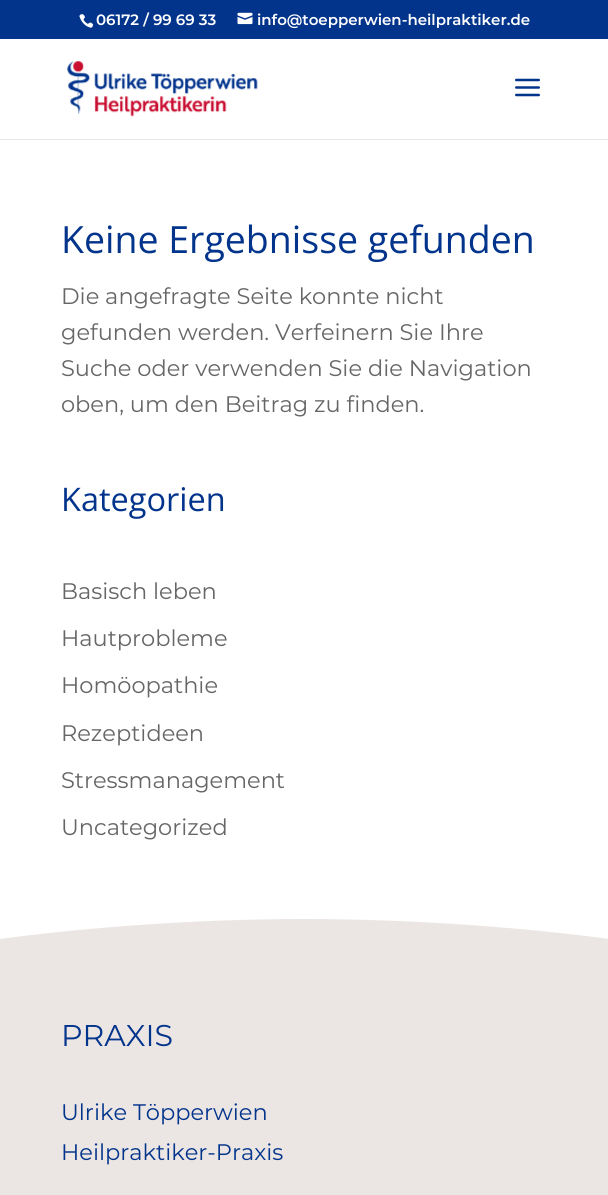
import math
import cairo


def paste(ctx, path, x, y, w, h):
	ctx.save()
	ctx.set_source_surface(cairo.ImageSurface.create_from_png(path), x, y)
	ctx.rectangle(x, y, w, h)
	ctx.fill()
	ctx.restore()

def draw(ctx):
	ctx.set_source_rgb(1, 1, 1)
	ctx.paint()
	ctx.set_source_rgb(0.008, 0.204, 0.549)
	ctx.rectangle(0, 0, 608, 39)
	ctx.fill()
	paste(ctx, 'media/1.png', 79, 14, 15, 14)
	ctx.select_font_face('Montserrat SemiBold')
	ctx.set_font_size(15)
	ctx.set_source_rgb(1, 1, 1)
	ctx.move_to(96, 25)
	ctx.show_text('06172 / 99 69 33')
	paste(ctx, 'media/2.png', 237, 12, 16, 13)
	ctx.move_to(257, 25)
	ctx.show_text('info@toepperwien-heilpraktiker.de')
	ctx.set_source_rgb(0.902, 0.902, 0.902)
	ctx.new_path()
	ctx.move_to(0, 139)
	ctx.line_to(0, 140)
	ctx.line_to(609, 140)
	ctx.line_to(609, 40)
	ctx.line_to(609, 139)
	ctx.close_path()
	ctx.fill()
	paste(ctx, 'media/3.png', 67, 61, 191, 56)
	paste(ctx, 'media/4.png', 515, 78, 25, 19)
	ctx.select_font_face('Open Sans')
	ctx.set_font_size(37.5)
	ctx.set_source_rgb(0.008, 0.204, 0.549)
	ctx.move_to(61, 253)
	ctx.show_text('Keine Ergebnisse gefunden')
	ctx.select_font_face('Montserrat')
	ctx.set_font_size(22.5)
	ctx.set_source_rgb(0.4, 0.4, 0.4)
	for x, y, s in [
		(61, 304, 'Die angefragte Seite konnte nicht'),
		(61, 340, 'gefunden werden. Verfeinern Sie Ihre'),
		(61, 376, 'Suche oder verwenden Sie die Navigation'),
		(61, 412, 'oben, um den Beitrag zu finden.'),
	]:
		ctx.move_to(x, y)
		ctx.show_text(s)
	ctx.select_font_face('Open Sans')
	ctx.set_font_size(32.5)
	ctx.set_source_rgb(0.008, 0.204, 0.549)
	ctx.move_to(61, 511)
	ctx.show_text('Kategorien')
	ctx.select_font_face('Montserrat')
	ctx.set_font_size(22.5)
	ctx.set_source_rgb(0.4, 0.4, 0.4)
	for x, y, s in [
		(61, 599, 'Basisch leben'),
		(61, 646, 'Hautprobleme'),
		(61, 693, 'Homöopathie'),
		(61, 741, 'Rezeptideen'),
		(61, 788, 'Stressmanagement'),
		(61, 835, 'Uncategorized'),
	]:
		ctx.move_to(x, y)
		ctx.show_text(s)
	ctx.set_source_rgb(0.918, 0.902, 0.89)
	ctx.rectangle(0, 919, 608, 276)
	ctx.fill()
	ctx.set_source_rgb(1, 1, 1)
	ctx.new_path()
	ctx.move_to(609, 919)
	ctx.line_to(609, 939)
	ctx.curve_to(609, 939, 472, 919, 304, 919)
	ctx.curve_to(136, 919, 0, 939, 0, 939)
	ctx.line_to(0, 919)
	ctx.close_path()
	ctx.fill()
	ctx.set_font_size(30)
	ctx.set_source_rgb(0.008, 0.204, 0.549)
	ctx.move_to(61, 1046)
	ctx.show_text('PRAXIS')
	ctx.set_font_size(22.5)
	ctx.move_to(61, 1120)
	ctx.show_text('Ulrike Töpperwien')
	ctx.move_to(61, 1160)
	ctx.show_text('Heilpraktiker-Praxis')


surface = cairo.ImageSurface(cairo.FORMAT_RGB24, 608, 1195)
ctx = cairo.Context(surface)
options = cairo.FontOptions()
options.set_hint_metrics(cairo.HINT_METRICS_OFF)
options.set_hint_style(cairo.HINT_STYLE_NONE)
ctx.set_font_options(options)
ctx.set_miter_limit(4)
draw(ctx)
surface.write_to_png('image.png')
